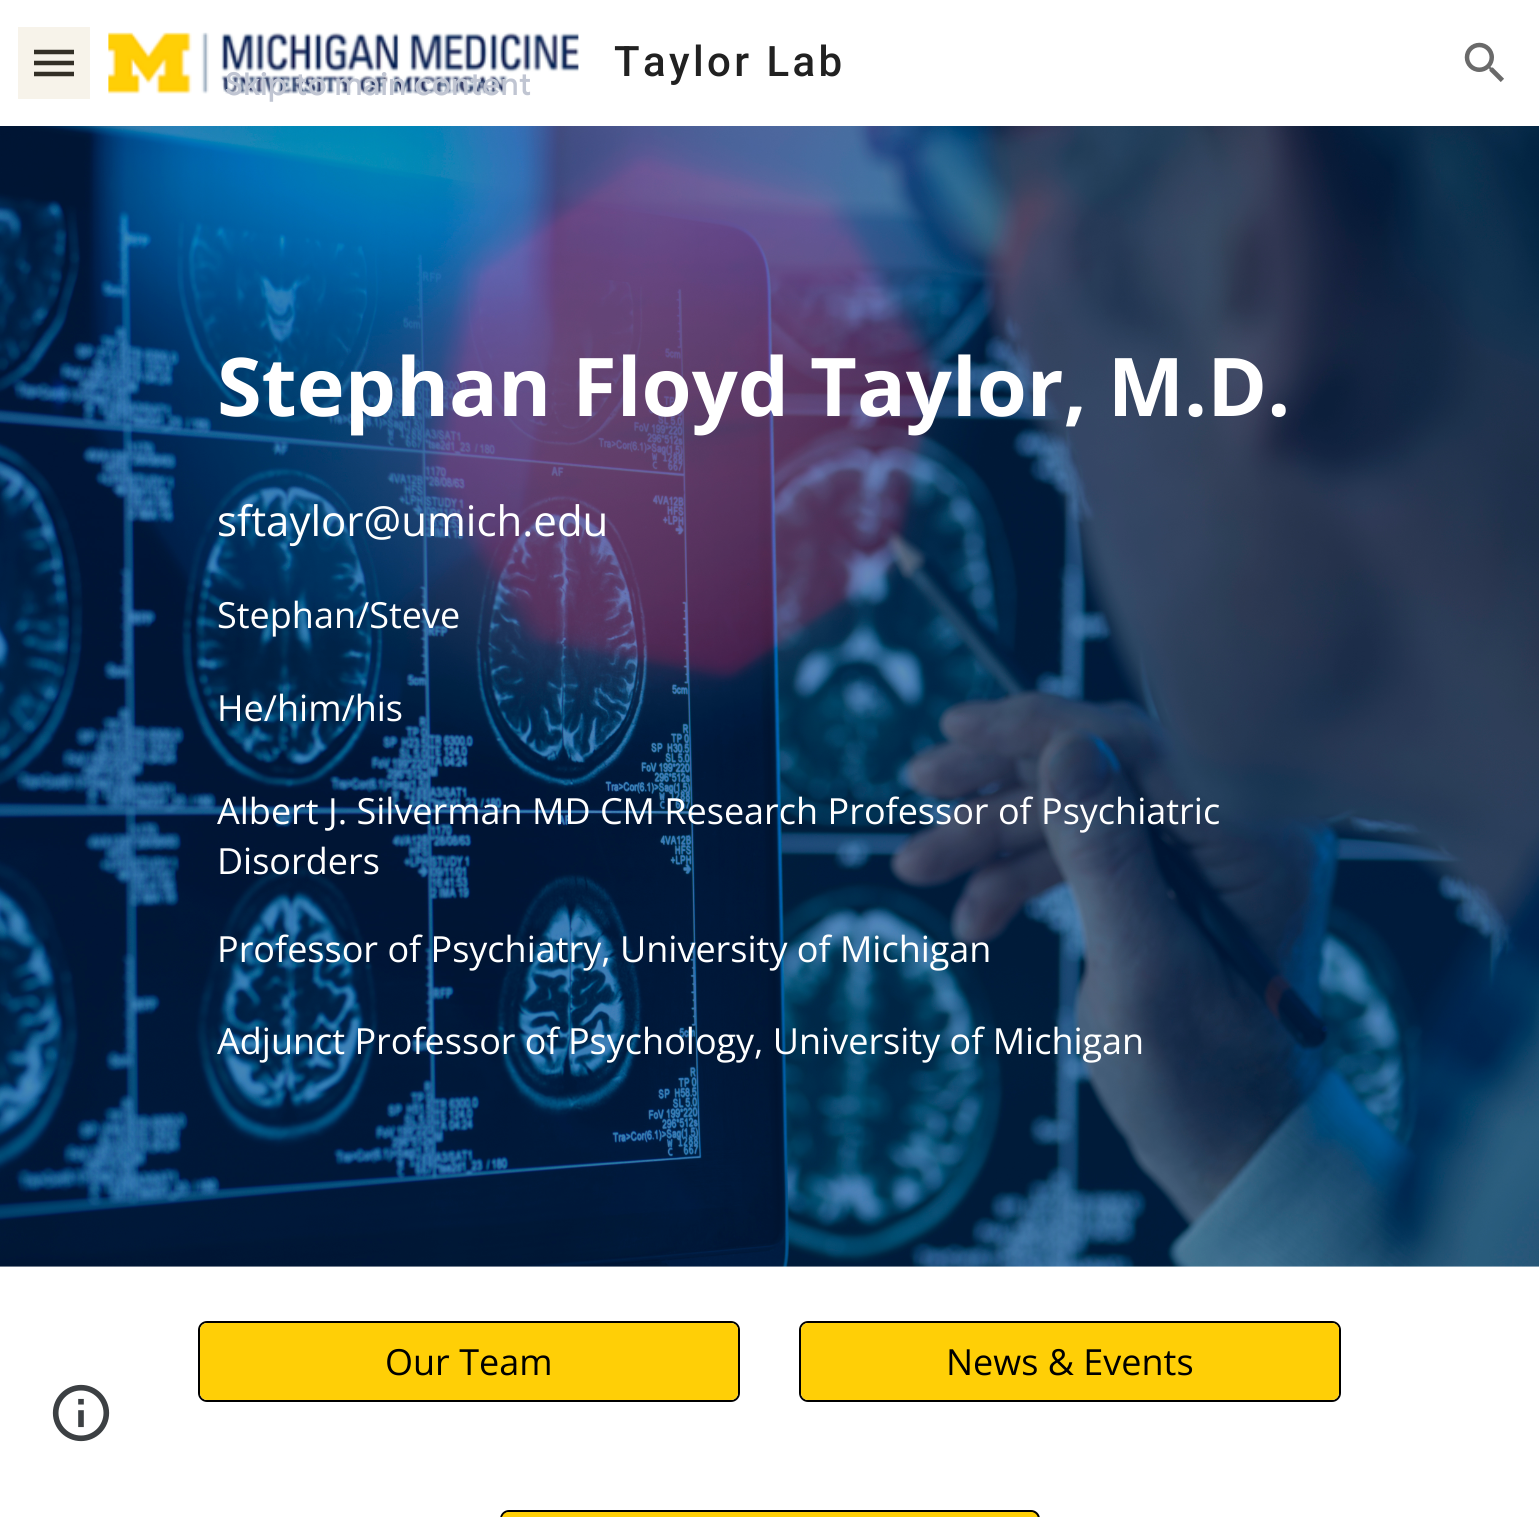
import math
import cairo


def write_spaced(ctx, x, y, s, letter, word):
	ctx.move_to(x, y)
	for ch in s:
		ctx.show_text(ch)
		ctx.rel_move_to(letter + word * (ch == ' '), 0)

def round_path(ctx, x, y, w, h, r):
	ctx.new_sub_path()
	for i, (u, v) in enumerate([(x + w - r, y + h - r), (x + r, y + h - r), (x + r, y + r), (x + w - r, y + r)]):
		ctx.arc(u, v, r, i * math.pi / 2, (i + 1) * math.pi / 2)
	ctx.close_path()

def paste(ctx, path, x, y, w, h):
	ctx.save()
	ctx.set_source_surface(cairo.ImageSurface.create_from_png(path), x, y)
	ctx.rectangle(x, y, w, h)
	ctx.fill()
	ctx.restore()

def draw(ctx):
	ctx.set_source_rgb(1, 1, 1)
	ctx.paint()
	ctx.new_path()
	ctx.move_to(34, 52)
	ctx.line_to(74, 52)
	ctx.move_to(34, 63)
	ctx.line_to(74, 63)
	ctx.move_to(34, 74)
	ctx.line_to(74, 74)
	ctx.set_source_rgb(0.129, 0.129, 0.129)
	ctx.set_line_width(4.5)
	ctx.stroke()
	ctx.set_source_rgba(0.718, 0.6, 0.318, 0.12)
	ctx.rectangle(18, 27, 72, 72)
	ctx.fill()
	paste(ctx, 'media/1.png', 108, 32, 471, 62)
	ctx.select_font_face('Roboto Medium')
	ctx.set_font_size(42)
	ctx.set_source_rgb(0.129, 0.129, 0.129)
	write_spaced(ctx, 614, 76, 'Taylor Lab', 3.4, 0)
	paste(ctx, 'media/2.png', 1464, 42, 40, 40)
	paste(ctx, 'media/3.png', 0, 126, 1539, 1141)
	ctx.select_font_face('Open Sans', cairo.FONT_SLANT_NORMAL, cairo.FONT_WEIGHT_BOLD)
	ctx.set_font_size(81)
	ctx.set_source_rgb(1, 1, 1)
	ctx.move_to(217, 416)
	ctx.show_text('Stephan Floyd Taylor, M.D.')
	ctx.select_font_face('Open Sans')
	ctx.set_font_size(42)
	ctx.move_to(217, 536)
	ctx.show_text('sftaylor@umich.edu')
	ctx.set_font_size(36)
	for x, y, s in [
		(217, 628, 'Stephan/Steve'),
		(217, 721, 'He/him/his'),
		(217, 824, 'Albert J. Silverman MD CM Research Professor of Psychiatric'),
		(217, 874, 'Disorders'),
		(217, 962, 'Professor of Psychiatry, University of Michigan'),
		(217, 1054, 'Adjunct Professor of Psychology, University of Michigan'),
	]:
		ctx.move_to(x, y)
		ctx.show_text(s)
	round_path(ctx, 199, 1322, 540, 79, 8)
	ctx.set_source_rgb(0, 0, 0)
	ctx.set_line_width(2)
	ctx.stroke()
	ctx.set_source_rgb(1, 0.812, 0.024)
	round_path(ctx, 200, 1323, 538, 77, 7)
	ctx.fill()
	ctx.set_source_rgb(0, 0, 0)
	ctx.move_to(385, 1375)
	ctx.show_text('Our Team')
	round_path(ctx, 800, 1322, 540, 79, 8)
	ctx.stroke()
	ctx.set_source_rgb(1, 0.812, 0.024)
	round_path(ctx, 801, 1323, 538, 77, 7)
	ctx.fill()
	ctx.set_source_rgb(0, 0, 0)
	ctx.move_to(946, 1375)
	ctx.show_text('News & Events')
	ctx.set_source_rgb(1, 0.812, 0.024)
	round_path(ctx, 501, 1511, 538, 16, 8)
	ctx.fill_preserve()
	ctx.set_source_rgb(0, 0, 0)
	ctx.stroke()
	ctx.set_source_rgb(1, 0.812, 0.024)
	round_path(ctx, 502, 1512, 535, 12, 7)
	ctx.fill()
	paste(ctx, 'media/4.png', 52, 1384, 58, 58)
	ctx.select_font_face('Google Sans Medium')
	ctx.set_font_size(31.5)
	ctx.set_source_rgb(0.753, 0.773, 0.824)
	write_spaced(ctx, 225, 95, 'Skip to main content', 0.3, 0)


surface = cairo.ImageSurface(cairo.FORMAT_RGB24, 1539, 1517)
ctx = cairo.Context(surface)
options = cairo.FontOptions()
options.set_hint_metrics(cairo.HINT_METRICS_OFF)
options.set_hint_style(cairo.HINT_STYLE_NONE)
ctx.set_font_options(options)
ctx.set_miter_limit(4)
draw(ctx)
surface.write_to_png('image.png')
